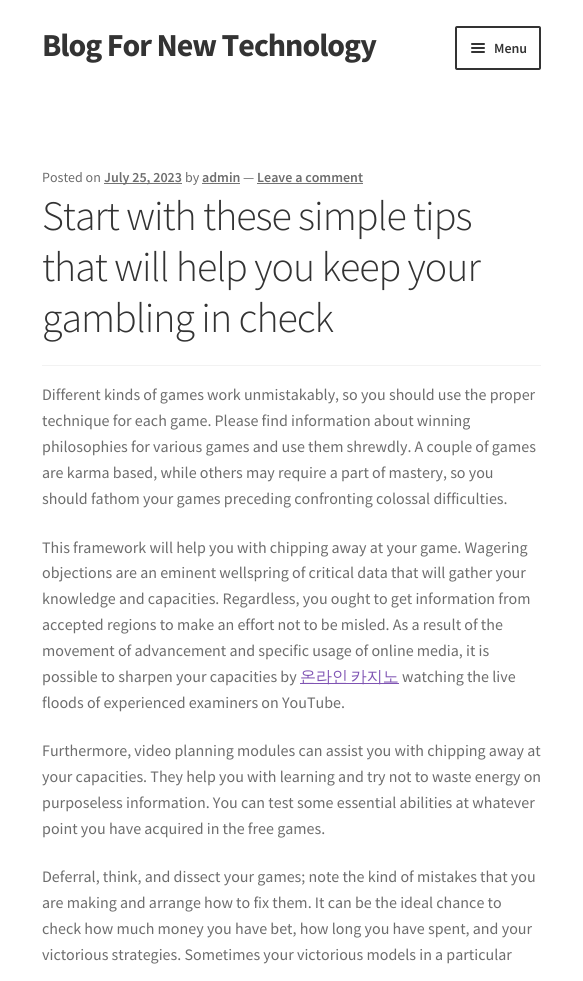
import math
import cairo


def write_spaced(ctx, x, y, s, letter, word):
	ctx.move_to(x, y)
	for ch in s:
		ctx.show_text(ch)
		ctx.rel_move_to(letter + word * (ch == ' '), 0)

def round_path(ctx, x, y, w, h, r):
	ctx.new_sub_path()
	for i, (u, v) in enumerate([(x + w - r, y + h - r), (x + r, y + h - r), (x + r, y + r), (x + w - r, y + r)]):
		ctx.arc(u, v, r, i * math.pi / 2, (i + 1) * math.pi / 2)
	ctx.close_path()

def draw(ctx):
	ctx.set_source_rgb(1, 1, 1)
	ctx.paint()
	ctx.select_font_face('Source Sans Pro', cairo.FONT_SLANT_NORMAL, cairo.FONT_WEIGHT_BOLD)
	ctx.set_font_size(32)
	ctx.set_source_rgb(0.2, 0.2, 0.2)
	write_spaced(ctx, 42, 56, 'Blog For New Technology', -1, 0)
	round_path(ctx, 456, 27, 84, 42, 1)
	ctx.stroke()
	round_path(ctx, 471, 43, 14, 2, 1)
	ctx.fill()
	round_path(ctx, 471, 47, 14, 2, 1)
	ctx.fill()
	ctx.select_font_face('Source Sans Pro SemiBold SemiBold')
	ctx.set_font_size(14)
	ctx.move_to(494, 53)
	ctx.show_text('Menu')
	round_path(ctx, 471, 51, 14, 2, 1)
	ctx.fill()
	ctx.set_source_rgb(0.949, 0.949, 0.949)
	ctx.rectangle(42, 365, 499, 1)
	ctx.fill()
	ctx.select_font_face('Source Sans Pro')
	ctx.set_source_rgb(0.427, 0.427, 0.427)
	ctx.move_to(42, 182)
	ctx.show_text('Posted on')
	ctx.set_source_rgb(0.447, 0.447, 0.447)
	ctx.rectangle(104, 183, 78, 1)
	ctx.fill()
	ctx.select_font_face('Source Sans Pro SemiBold SemiBold')
	ctx.set_source_rgb(0.427, 0.427, 0.427)
	ctx.move_to(104, 182)
	ctx.show_text('July 25, 2023')
	ctx.select_font_face('Source Sans Pro')
	ctx.move_to(185, 182)
	ctx.show_text('by')
	ctx.select_font_face('Source Sans Pro SemiBold SemiBold')
	ctx.move_to(202, 182)
	ctx.show_text('admin')
	ctx.set_source_rgb(0.447, 0.447, 0.447)
	ctx.rectangle(202, 183, 38, 1)
	ctx.fill()
	ctx.select_font_face('Source Sans Pro')
	ctx.set_source_rgb(0.427, 0.427, 0.427)
	ctx.move_to(243, 182)
	ctx.show_text('—')
	ctx.set_source_rgb(0.447, 0.447, 0.447)
	ctx.rectangle(257, 183, 106, 1)
	ctx.fill()
	ctx.select_font_face('Source Sans Pro SemiBold SemiBold')
	ctx.set_source_rgb(0.427, 0.427, 0.427)
	ctx.move_to(257, 182)
	ctx.show_text('Leave a comment')
	ctx.select_font_face('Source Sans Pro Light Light')
	ctx.set_font_size(41.9)
	ctx.set_source_rgb(0.2, 0.2, 0.2)
	for x, y, s in [
		(42, 230, 'Start with these simple tips'),
		(42, 281, 'that will help you keep your'),
		(42, 332, 'gambling in check'),
	]:
		write_spaced(ctx, x, y, s, -1, 0)
	ctx.select_font_face('Source Sans Pro')
	ctx.set_font_size(16)
	ctx.set_source_rgb(0.427, 0.427, 0.427)
	for x, y, s in [
		(42, 400, 'Different kinds of games work unmistakably, so you should use the proper'),
		(42, 426, 'technique for each game. Please find information about winning'),
		(42, 452, 'philosophies for various games and use them shrewdly. A couple of games'),
		(42, 478, 'are karma based, while others may require a part of mastery, so you'),
		(42, 504, 'should fathom your games preceding confronting colossal difficulties.'),
		(42, 553, 'This framework will help you with chipping away at your game. Wagering'),
		(42, 578, 'objections are an eminent wellspring of critical data that will gather your'),
		(42, 604, 'knowledge and capacities. Regardless, you ought to get information from'),
		(42, 630, 'accepted regions to make an effort not to be misled. As a result of the'),
		(42, 656, 'movement of advancement and specific usage of online media, it is'),
		(42, 682, 'possible to sharpen your capacities by'),
	]:
		ctx.move_to(x, y)
		ctx.show_text(s)
	ctx.set_source_rgb(0.498, 0.329, 0.702)
	ctx.rectangle(300, 683, 99, 1)
	ctx.fill()
	ctx.select_font_face('WenQuanYi Zen Hei Medium')
	write_spaced(ctx, 300, 682, '온라인 카지노', 0, -2)
	ctx.select_font_face('Source Sans Pro')
	ctx.set_source_rgb(0.427, 0.427, 0.427)
	for x, y, s in [
		(402, 682, 'watching the live'),
		(42, 708, 'floods of experienced examiners on YouTube.'),
		(42, 756, 'Furthermore, video planning modules can assist you with chipping away at'),
		(42, 782, 'your capacities. They help you with learning and try not to waste energy on'),
		(42, 808, 'purposeless information. You can test some essential abilities at whatever'),
		(42, 834, 'point you have acquired in the free games.'),
		(42, 882, 'Deferral, think, and dissect your games; note the kind of mistakes that you'),
		(42, 908, 'are making and arrange how to fix them. It can be the ideal chance to'),
		(42, 934, 'check how much money you have bet, how long you have spent, and your'),
		(42, 960, 'victorious strategies. Sometimes your victorious models in a particular'),
	]:
		ctx.move_to(x, y)
		ctx.show_text(s)


surface = cairo.ImageSurface(cairo.FORMAT_RGB24, 583, 981)
ctx = cairo.Context(surface)
options = cairo.FontOptions()
options.set_hint_metrics(cairo.HINT_METRICS_OFF)
options.set_hint_style(cairo.HINT_STYLE_NONE)
ctx.set_font_options(options)
ctx.set_miter_limit(4)
draw(ctx)
surface.write_to_png('image.png')
